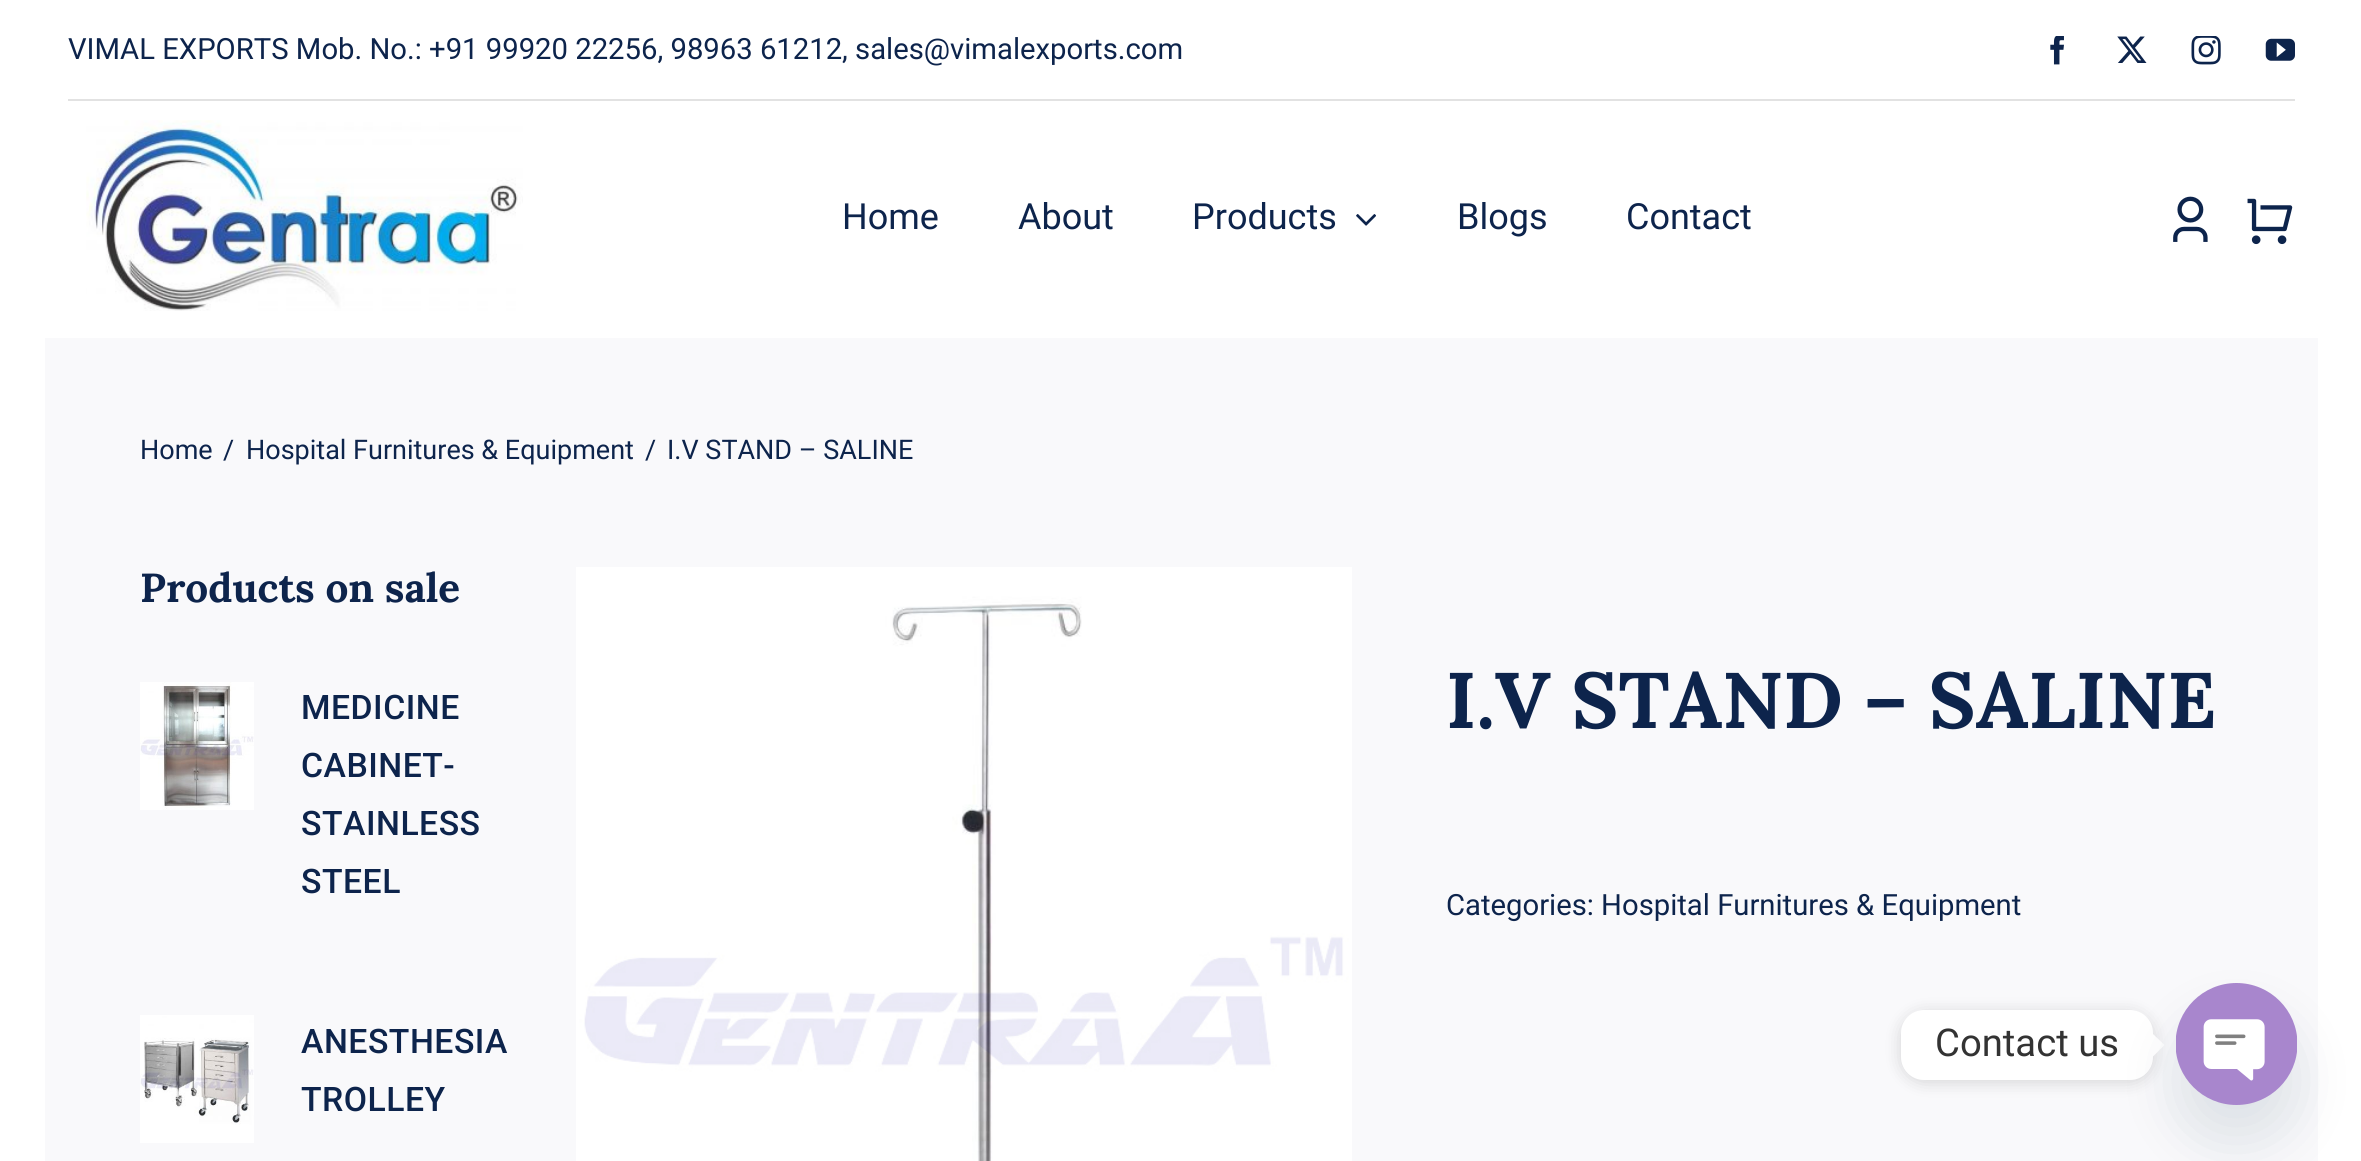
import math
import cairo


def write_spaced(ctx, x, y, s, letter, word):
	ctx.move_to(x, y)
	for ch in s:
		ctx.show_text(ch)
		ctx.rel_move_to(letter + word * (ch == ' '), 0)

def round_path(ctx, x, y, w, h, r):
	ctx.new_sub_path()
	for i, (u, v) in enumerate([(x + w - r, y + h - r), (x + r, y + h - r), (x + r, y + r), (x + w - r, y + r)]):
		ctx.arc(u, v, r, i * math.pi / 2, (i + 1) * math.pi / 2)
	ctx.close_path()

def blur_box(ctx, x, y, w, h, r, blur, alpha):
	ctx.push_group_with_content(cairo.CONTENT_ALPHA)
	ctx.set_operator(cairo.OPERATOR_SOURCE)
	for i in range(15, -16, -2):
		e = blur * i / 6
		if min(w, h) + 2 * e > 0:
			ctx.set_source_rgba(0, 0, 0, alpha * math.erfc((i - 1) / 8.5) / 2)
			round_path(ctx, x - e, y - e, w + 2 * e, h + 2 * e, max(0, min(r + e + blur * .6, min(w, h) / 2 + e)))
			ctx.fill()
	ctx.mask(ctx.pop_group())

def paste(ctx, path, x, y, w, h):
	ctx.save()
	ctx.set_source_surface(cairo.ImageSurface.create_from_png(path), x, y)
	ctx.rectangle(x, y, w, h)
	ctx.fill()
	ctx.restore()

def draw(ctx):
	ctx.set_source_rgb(1, 1, 1)
	ctx.paint()
	ctx.select_font_face('Roboto')
	ctx.set_font_size(29.25)
	ctx.set_source_rgb(0.051, 0.141, 0.298)
	ctx.move_to(68, 59)
	ctx.show_text('VIMAL EXPORTS Mob. No.: +91 99920 22256, 98963 61212, sales@vimalexports.com')
	paste(ctx, 'media/1.png', 2050, 36, 14, 29)
	paste(ctx, 'media/2.png', 2117, 36, 30, 27)
	paste(ctx, 'media/3.png', 2191, 36, 30, 29)
	paste(ctx, 'media/4.png', 2265, 38, 30, 23)
	ctx.set_source_rgb(0.886, 0.886, 0.886)
	ctx.rectangle(68, 99, 2227, 2)
	ctx.fill()
	paste(ctx, 'media/5.png', 86, 120, 437, 191)
	ctx.set_font_size(36)
	ctx.set_source_rgb(0.051, 0.141, 0.298)
	for x, y, s in [
		(842, 229, 'Home'),
		(1018, 229, 'About'),
		(1192, 229, 'Products'),
	]:
		ctx.move_to(x, y)
		ctx.show_text(s)
	paste(ctx, 'media/6.png', 1356, 214, 20, 12)
	ctx.move_to(1457, 229)
	ctx.show_text('Blogs')
	ctx.move_to(1626, 229)
	ctx.show_text('Contact')
	paste(ctx, 'media/7.png', 2173, 196, 35, 46)
	paste(ctx, 'media/8.png', 2247, 198, 46, 47)
	ctx.set_source_rgb(0.976, 0.976, 0.984)
	ctx.rectangle(45, 338, 2273, 823)
	ctx.fill()
	ctx.set_font_size(27)
	ctx.set_source_rgb(0.051, 0.141, 0.298)
	for x, y, s in [
		(140, 459, 'Home'),
		(223, 459, '/'),
		(246, 459, 'Hospital Furnitures & Equipment'),
		(645, 459, '/'),
		(667, 459, 'I.V STAND – SALINE'),
	]:
		ctx.move_to(x, y)
		ctx.show_text(s)
	ctx.select_font_face('Lora', cairo.FONT_SLANT_NORMAL, cairo.FONT_WEIGHT_BOLD)
	ctx.set_font_size(40.5)
	ctx.move_to(140, 602)
	ctx.show_text('Products on sale')
	paste(ctx, 'media/9.png', 140, 682, 114, 128)
	ctx.select_font_face('Roboto Medium')
	ctx.set_font_size(33.75)
	for x, y, s in [
		(301, 719, 'MEDICINE'),
		(301, 777, 'CABINET-'),
		(301, 835, 'STAINLESS'),
		(301, 893, 'STEEL'),
	]:
		write_spaced(ctx, x, y, s, 0.5, 0)
	paste(ctx, 'media/10.png', 140, 1015, 114, 128)
	write_spaced(ctx, 301, 1053, 'ANESTHESIA', 0.5, 0)
	write_spaced(ctx, 301, 1111, 'TROLLEY', 0.5, 0)
	paste(ctx, 'media/11.png', 576, 567, 776, 594)
	ctx.select_font_face('Lora', cairo.FONT_SLANT_NORMAL, cairo.FONT_WEIGHT_BOLD)
	ctx.set_font_size(78.75)
	ctx.move_to(1446, 728)
	ctx.show_text('I.V STAND – SALINE')
	ctx.select_font_face('Roboto')
	ctx.set_font_size(29.25)
	ctx.move_to(1446, 915)
	ctx.show_text('Categories: Hospital Furnitures & Equipment')
	ctx.set_source_rgb(0, 0, 0)
	blur_box(ctx, 1901, 1013, 252, 69, 23, 8.5, 0.15)
	ctx.set_source_rgb(1, 1, 1)
	round_path(ctx, 1901, 1010, 252, 70, 23)
	ctx.fill()
	ctx.set_font_size(38.25)
	ctx.set_source_rgb(0.2, 0.2, 0.2)
	ctx.move_to(1935, 1056)
	ctx.show_text('Contact us')
	ctx.set_source_rgb(1, 1, 1)
	ctx.new_path()
	ctx.move_to(2153, 1056.5)
	ctx.line_to(2153, 1034)
	ctx.line_to(2164.5, 1045)
	ctx.close_path()
	ctx.fill()
	ctx.set_source_rgb(0.286, 0.408, 0.494)
	blur_box(ctx, 2176, 1019, 121, 122, 60.5, 27, 0.16)
	paste(ctx, 'media/12.png', 2176, 983, 121, 122)


surface = cairo.ImageSurface(cairo.FORMAT_RGB24, 2361, 1161)
ctx = cairo.Context(surface)
options = cairo.FontOptions()
options.set_hint_metrics(cairo.HINT_METRICS_OFF)
options.set_hint_style(cairo.HINT_STYLE_NONE)
ctx.set_font_options(options)
ctx.set_miter_limit(4)
draw(ctx)
surface.write_to_png('image.png')
